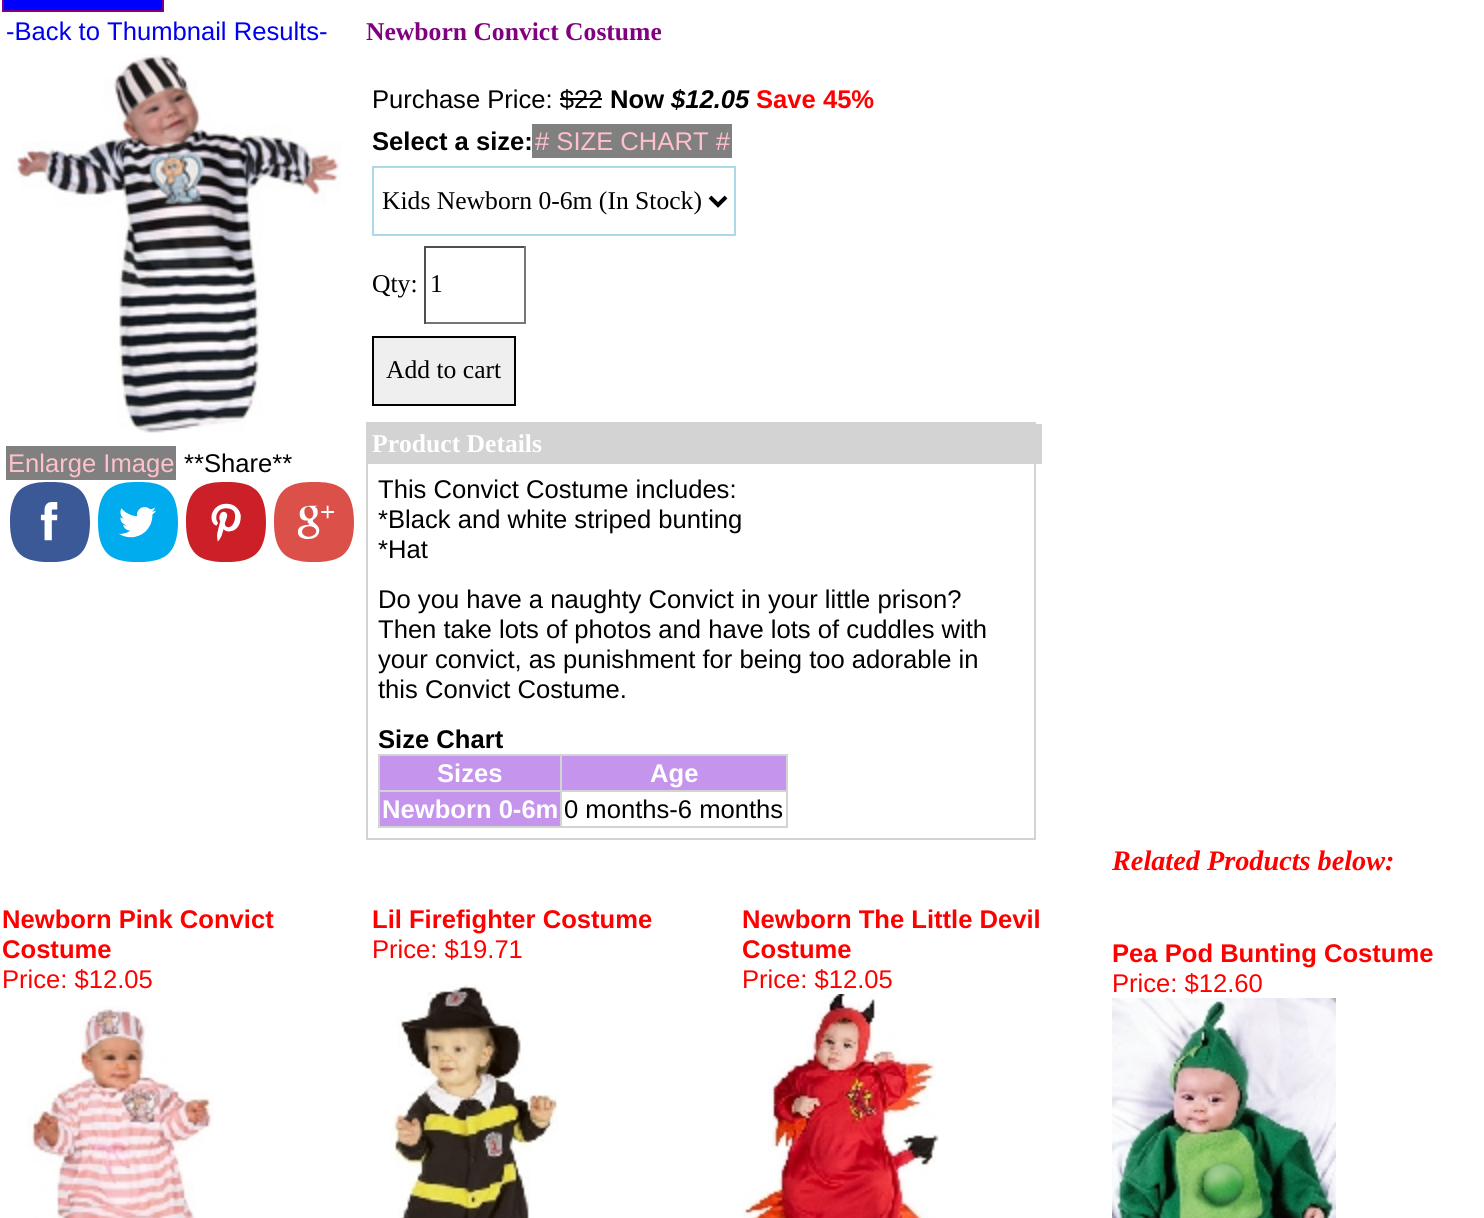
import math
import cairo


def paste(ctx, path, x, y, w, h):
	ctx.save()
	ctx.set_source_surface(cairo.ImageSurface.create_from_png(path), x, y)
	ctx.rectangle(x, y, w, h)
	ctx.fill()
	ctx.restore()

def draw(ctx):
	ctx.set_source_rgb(1, 1, 1)
	ctx.paint()
	ctx.set_source_rgb(0, 0, 1)
	ctx.rectangle(3, -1, 160, 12)
	ctx.fill_preserve()
	ctx.set_source_rgb(0.502, 0, 0.502)
	ctx.stroke()
	ctx.select_font_face('Liberation Sans')
	ctx.set_font_size(25.6)
	ctx.set_source_rgb(0, 0, 0.933)
	ctx.move_to(6, 40)
	ctx.show_text('-Back to Thumbnail Results-')
	paste(ctx, 'media/1.png', 12, 54, 330, 379)
	ctx.set_source_rgb(0.502, 0.502, 0.502)
	ctx.rectangle(6, 446, 170, 34)
	ctx.fill()
	ctx.set_source_rgb(1, 0.753, 0.796)
	ctx.move_to(8, 472)
	ctx.show_text('Enlarge Image')
	ctx.set_source_rgb(0, 0, 0)
	ctx.move_to(184, 472)
	ctx.show_text('**Share**')
	paste(ctx, 'media/2.png', 10, 482, 80, 80)
	paste(ctx, 'media/3.png', 98, 482, 80, 80)
	paste(ctx, 'media/4.png', 186, 482, 80, 80)
	paste(ctx, 'media/5.png', 274, 482, 80, 80)
	ctx.select_font_face('Liberation Serif', cairo.FONT_SLANT_NORMAL, cairo.FONT_WEIGHT_BOLD)
	ctx.set_source_rgb(0.502, 0, 0.502)
	ctx.move_to(366, 40)
	ctx.show_text('Newborn Convict Costume')
	ctx.select_font_face('Liberation Sans')
	ctx.set_source_rgb(0, 0, 0)
	ctx.move_to(372, 108)
	ctx.show_text('Purchase Price: $22')
	ctx.select_font_face('Liberation Sans', cairo.FONT_SLANT_NORMAL, cairo.FONT_WEIGHT_BOLD)
	ctx.move_to(610, 108)
	ctx.show_text('Now')
	ctx.select_font_face('Liberation Sans', cairo.FONT_SLANT_ITALIC, cairo.FONT_WEIGHT_BOLD)
	ctx.move_to(671, 108)
	ctx.show_text('$12.05')
	ctx.select_font_face('Liberation Sans', cairo.FONT_SLANT_NORMAL, cairo.FONT_WEIGHT_BOLD)
	ctx.set_source_rgb(1, 0, 0)
	ctx.move_to(756, 108)
	ctx.show_text('Save 45%')
	ctx.set_source_rgb(0, 0, 0)
	ctx.rectangle(560, 98, 42, 2)
	ctx.fill()
	ctx.move_to(372, 150)
	ctx.show_text('Select a size:')
	ctx.set_source_rgb(0.502, 0.502, 0.502)
	ctx.rectangle(532, 124, 200, 34)
	ctx.fill()
	ctx.select_font_face('Liberation Sans')
	ctx.set_source_rgb(1, 0.753, 0.796)
	ctx.move_to(535, 150)
	ctx.show_text('# SIZE CHART #')
	ctx.rectangle(373, 167, 362, 68)
	ctx.set_source_rgb(0.678, 0.847, 0.902)
	ctx.stroke()
	ctx.new_path()
	ctx.move_to(710, 197)
	ctx.line_to(718, 205)
	ctx.line_to(726, 197)
	ctx.set_source_rgb(0, 0, 0)
	ctx.set_line_width(4)
	ctx.stroke()
	ctx.select_font_face('Liberation Serif')
	ctx.move_to(382, 209)
	ctx.show_text('Kids Newborn 0-6m (In Stock)')
	ctx.move_to(372, 292)
	ctx.show_text('Qty:')
	ctx.set_source_rgb(0.31, 0.31, 0.31)
	ctx.rectangle(424, 246, 102, 2)
	ctx.fill()
	ctx.set_source_rgb(0.463, 0.463, 0.463)
	ctx.rectangle(524, 246, 2, 78)
	ctx.rectangle(424, 322, 102, 2)
	ctx.fill()
	ctx.set_source_rgb(0.31, 0.31, 0.31)
	ctx.rectangle(424, 246, 2, 78)
	ctx.fill()
	ctx.set_source_rgb(0, 0, 0)
	ctx.move_to(430, 292)
	ctx.show_text('1')
	ctx.set_source_rgb(0.937, 0.937, 0.937)
	ctx.rectangle(373, 337, 142, 68)
	ctx.fill_preserve()
	ctx.set_source_rgb(0, 0, 0)
	ctx.set_line_width(2)
	ctx.stroke()
	ctx.move_to(386, 378)
	ctx.show_text('Add to cart')
	ctx.rectangle(367, 423, 668, 416)
	ctx.set_source_rgb(0.827, 0.827, 0.827)
	ctx.stroke()
	ctx.rectangle(368, 424, 674, 40)
	ctx.fill()
	ctx.select_font_face('Liberation Serif', cairo.FONT_SLANT_NORMAL, cairo.FONT_WEIGHT_BOLD)
	ctx.set_source_rgb(1, 1, 1)
	ctx.move_to(372, 452)
	ctx.show_text('Product Details')
	ctx.select_font_face('Liberation Sans')
	ctx.set_source_rgb(0, 0, 0)
	for x, y, s in [
		(378, 498, 'This Convict Costume includes:'),
		(378, 528, '*Black and white striped bunting'),
		(378, 558, '*Hat'),
		(378, 608, 'Do you have a naughty Convict in your little prison?'),
		(378, 638, 'Then take lots of photos and have lots of cuddles with'),
		(378, 668, 'your convict, as punishment for being too adorable in'),
		(378, 698, 'this Convict Costume.'),
	]:
		ctx.move_to(x, y)
		ctx.show_text(s)
	ctx.select_font_face('Liberation Sans', cairo.FONT_SLANT_NORMAL, cairo.FONT_WEIGHT_BOLD)
	ctx.move_to(378, 748)
	ctx.show_text('Size Chart')
	ctx.set_source_rgb(0.773, 0.58, 0.929)
	ctx.rectangle(380, 756, 180, 34)
	ctx.fill()
	ctx.set_source_rgb(0.827, 0.827, 0.827)
	ctx.rectangle(560, 754, 228, 2)
	ctx.rectangle(560, 790, 228, 2)
	ctx.rectangle(786, 790, 2, 38)
	ctx.rectangle(560, 826, 228, 2)
	ctx.rectangle(560, 790, 2, 38)
	ctx.rectangle(378, 790, 184, 2)
	ctx.rectangle(560, 754, 2, 38)
	ctx.rectangle(378, 754, 184, 2)
	ctx.rectangle(378, 826, 184, 2)
	ctx.rectangle(378, 790, 2, 38)
	ctx.rectangle(378, 754, 2, 38)
	ctx.fill()
	ctx.set_source_rgb(1, 1, 1)
	ctx.move_to(437, 782)
	ctx.show_text('Sizes')
	ctx.set_source_rgb(0.773, 0.58, 0.929)
	ctx.rectangle(562, 756, 224, 34)
	ctx.fill()
	ctx.set_source_rgb(0.827, 0.827, 0.827)
	ctx.rectangle(786, 754, 2, 38)
	ctx.fill()
	ctx.set_source_rgb(1, 1, 1)
	ctx.move_to(650, 782)
	ctx.show_text('Age')
	ctx.set_source_rgb(0.773, 0.58, 0.929)
	ctx.rectangle(380, 792, 180, 34)
	ctx.fill()
	ctx.set_source_rgb(1, 1, 1)
	ctx.move_to(382, 818)
	ctx.show_text('Newborn 0-6m')
	ctx.select_font_face('Liberation Sans')
	ctx.set_source_rgb(0, 0, 0)
	ctx.move_to(564, 818)
	ctx.show_text('0 months-6 months')
	ctx.select_font_face('Liberation Serif', cairo.FONT_SLANT_ITALIC, cairo.FONT_WEIGHT_BOLD)
	ctx.set_font_size(28.25)
	ctx.set_source_rgb(1, 0, 0)
	ctx.move_to(1112, 870)
	ctx.show_text('Related Products below:')
	ctx.select_font_face('Liberation Sans', cairo.FONT_SLANT_NORMAL, cairo.FONT_WEIGHT_BOLD)
	ctx.set_font_size(25.6)
	ctx.move_to(2, 928)
	ctx.show_text('Newborn Pink Convict')
	ctx.move_to(2, 958)
	ctx.show_text('Costume')
	ctx.select_font_face('Liberation Sans')
	ctx.move_to(2, 988)
	ctx.show_text('Price: $12.05')
	paste(ctx, 'media/6.png', 27, 1006, 187, 212)
	ctx.select_font_face('Liberation Sans', cairo.FONT_SLANT_NORMAL, cairo.FONT_WEIGHT_BOLD)
	ctx.move_to(372, 928)
	ctx.show_text('Lil Firefighter Costume')
	ctx.select_font_face('Liberation Sans')
	ctx.move_to(372, 958)
	ctx.show_text('Price: $19.71')
	paste(ctx, 'media/7.png', 390, 984, 168, 234)
	ctx.select_font_face('Liberation Sans', cairo.FONT_SLANT_NORMAL, cairo.FONT_WEIGHT_BOLD)
	ctx.move_to(742, 928)
	ctx.show_text('Newborn The Little Devil')
	ctx.move_to(742, 958)
	ctx.show_text('Costume')
	ctx.select_font_face('Liberation Sans')
	ctx.move_to(742, 988)
	ctx.show_text('Price: $12.05')
	paste(ctx, 'media/8.png', 742, 994, 197, 224)
	ctx.select_font_face('Liberation Sans', cairo.FONT_SLANT_NORMAL, cairo.FONT_WEIGHT_BOLD)
	ctx.move_to(1112, 962)
	ctx.show_text('Pea Pod Bunting Costume')
	ctx.select_font_face('Liberation Sans')
	ctx.move_to(1112, 992)
	ctx.show_text('Price: $12.60')
	paste(ctx, 'media/9.png', 1112, 998, 224, 220)


surface = cairo.ImageSurface(cairo.FORMAT_RGB24, 1484, 1218)
ctx = cairo.Context(surface)
options = cairo.FontOptions()
options.set_hint_metrics(cairo.HINT_METRICS_OFF)
options.set_hint_style(cairo.HINT_STYLE_NONE)
ctx.set_font_options(options)
ctx.set_miter_limit(4)
draw(ctx)
surface.write_to_png('image.png')
